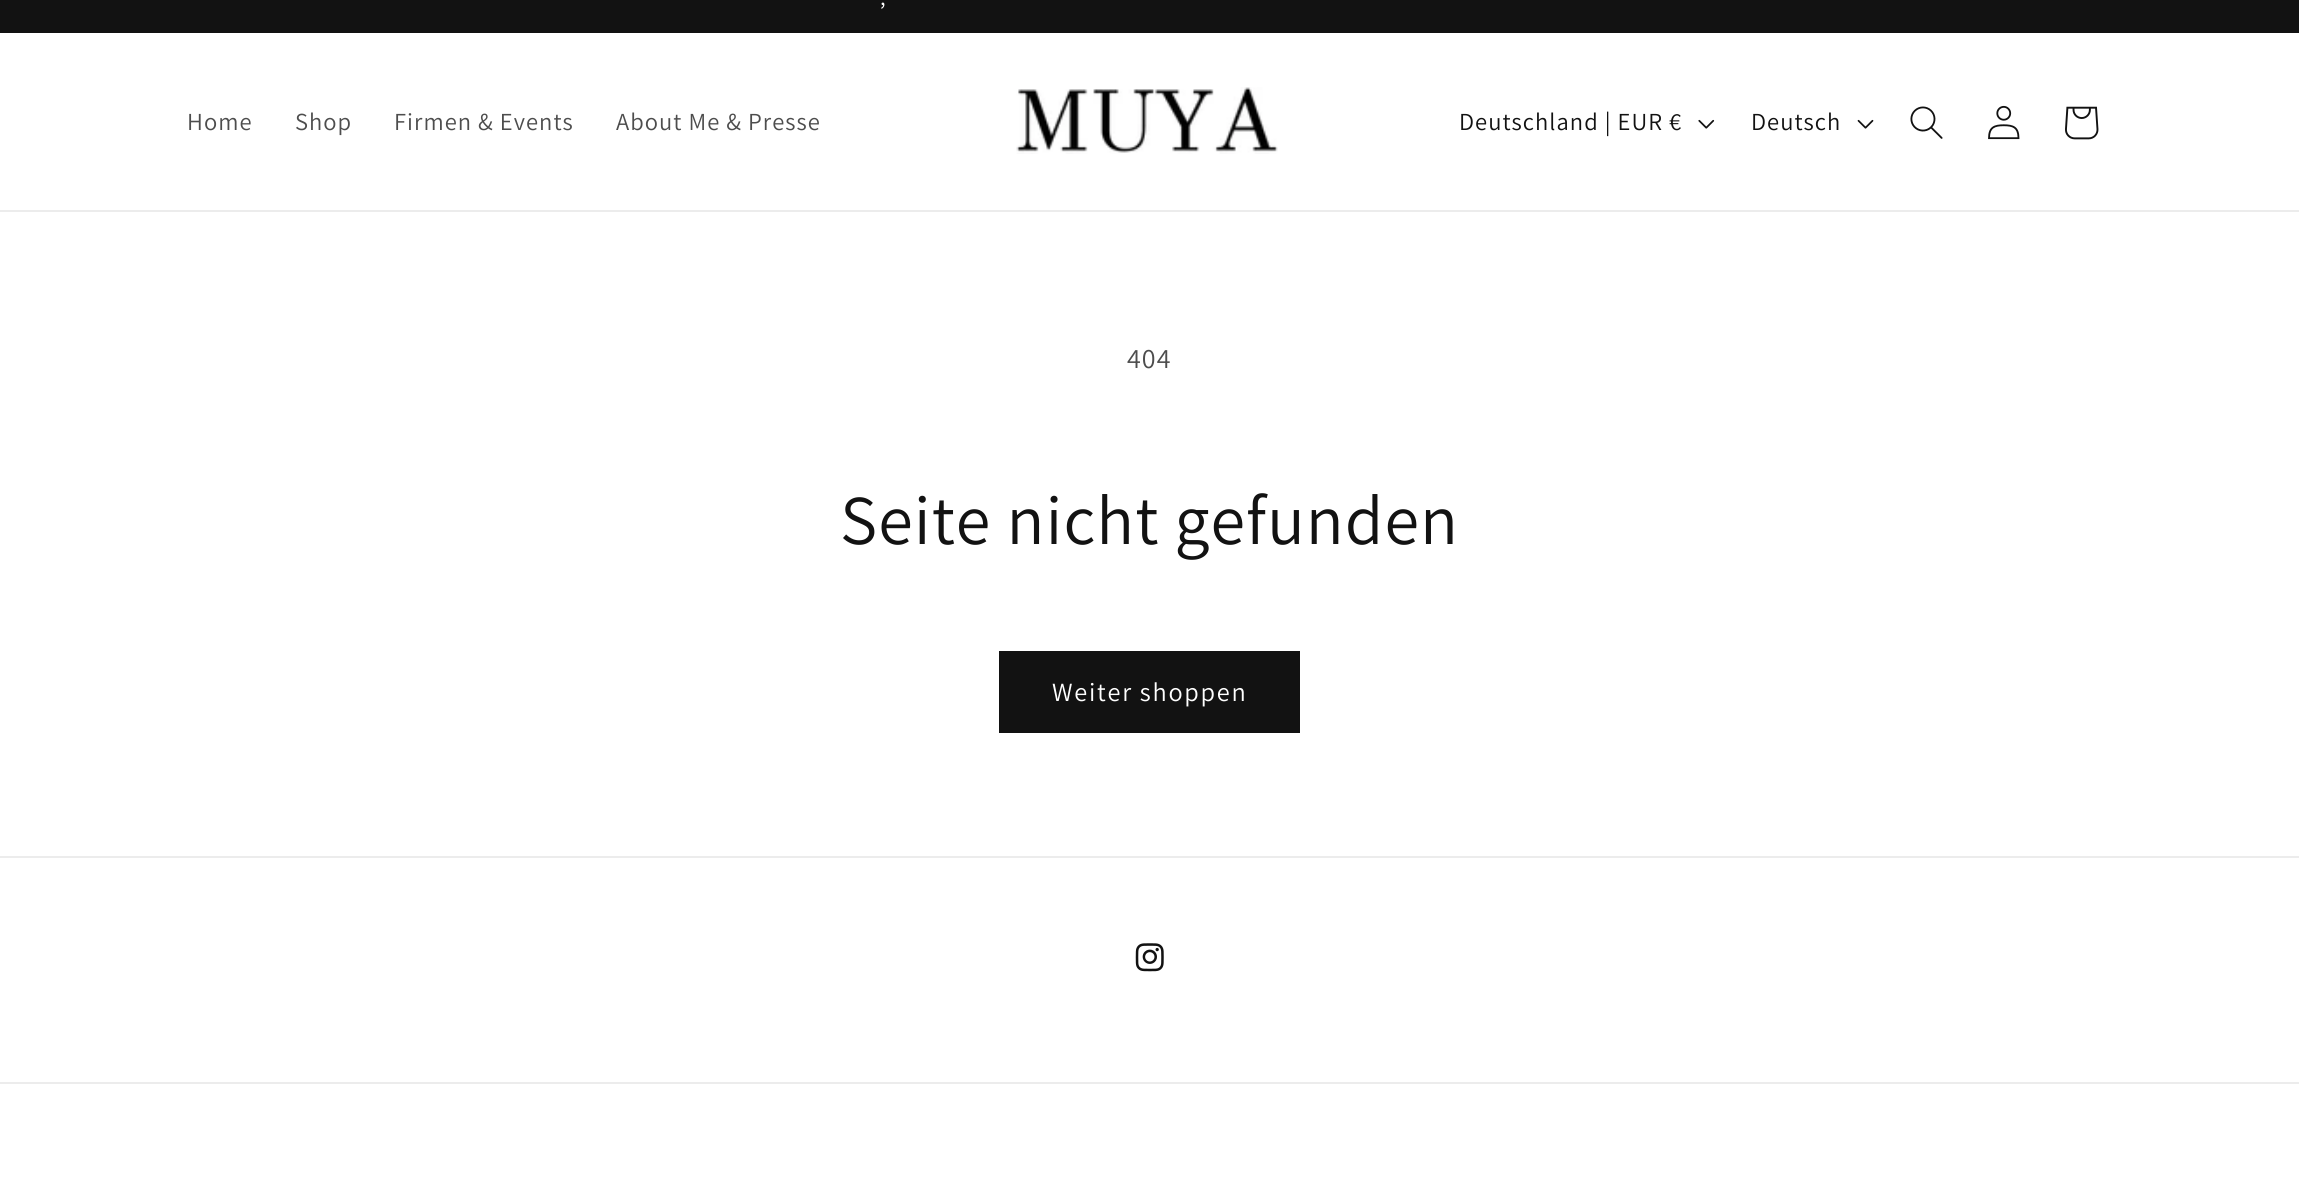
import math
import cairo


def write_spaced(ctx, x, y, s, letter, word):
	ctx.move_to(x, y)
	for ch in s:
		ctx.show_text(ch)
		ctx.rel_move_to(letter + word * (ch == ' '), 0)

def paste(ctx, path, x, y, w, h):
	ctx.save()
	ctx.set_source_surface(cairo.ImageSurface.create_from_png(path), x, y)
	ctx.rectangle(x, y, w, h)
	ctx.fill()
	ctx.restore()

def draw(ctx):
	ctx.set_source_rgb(1, 1, 1)
	ctx.paint()
	ctx.set_source_rgb(0.071, 0.071, 0.071)
	ctx.rectangle(0, 0, 2299, 33)
	ctx.fill()
	ctx.select_font_face('Assistant')
	ctx.set_font_size(23)
	ctx.set_source_rgb(1, 1, 1)
	write_spaced(ctx, 880, 5, ',', 1.75, 0)
	ctx.set_source_rgb(0.925, 0.925, 0.925)
	ctx.rectangle(0, 210, 2299, 2)
	ctx.fill()
	ctx.set_font_size(24.5)
	ctx.set_source_rgb(0.302, 0.302, 0.302)
	for x, y, s in [
		(187, 130, 'Home'),
		(295, 130, 'Shop'),
		(394, 130, 'Firmen & Events'),
		(616, 130, 'About Me & Presse'),
	]:
		write_spaced(ctx, x, y, s, 1.05, 0)
	paste(ctx, 'media/1.png', 1016, 87, 262, 67)
	ctx.set_source_rgb(0.071, 0.071, 0.071)
	write_spaced(ctx, 1459, 130, 'Deutschland | EUR €', 1.05, 0)
	paste(ctx, 'media/2.png', 1698, 119, 17, 10)
	write_spaced(ctx, 1751, 130, 'Deutsch', 1.05, 0)
	paste(ctx, 'media/3.png', 1857, 119, 17, 10)
	paste(ctx, 'media/4.png', 1910, 106, 33, 33)
	paste(ctx, 'media/5.png', 1988, 105, 32, 35)
	paste(ctx, 'media/6.png', 2065, 106, 34, 34)
	ctx.set_font_size(28)
	ctx.set_source_rgb(0.302, 0.302, 0.302)
	write_spaced(ctx, 1127, 368, '404', 1.05, 0)
	ctx.set_font_size(70)
	ctx.set_source_rgb(0.071, 0.071, 0.071)
	write_spaced(ctx, 840, 544, 'Seite nicht gefunden', 1.05, 0)
	ctx.rectangle(999, 651, 301, 82)
	ctx.fill()
	ctx.set_font_size(26.25)
	ctx.set_source_rgb(1, 1, 1)
	write_spaced(ctx, 1052, 701, 'Weiter shoppen', 1.75, 0)
	ctx.set_source_rgb(0.925, 0.925, 0.925)
	ctx.rectangle(0, 856, 2299, 2)
	ctx.fill()
	paste(ctx, 'media/7.png', 1135, 943, 29, 29)
	ctx.rectangle(0, 1082, 2299, 2)
	ctx.fill()


surface = cairo.ImageSurface(cairo.FORMAT_RGB24, 2299, 1193)
ctx = cairo.Context(surface)
options = cairo.FontOptions()
options.set_hint_metrics(cairo.HINT_METRICS_OFF)
options.set_hint_style(cairo.HINT_STYLE_NONE)
ctx.set_font_options(options)
ctx.set_miter_limit(4)
draw(ctx)
surface.write_to_png('image.png')
